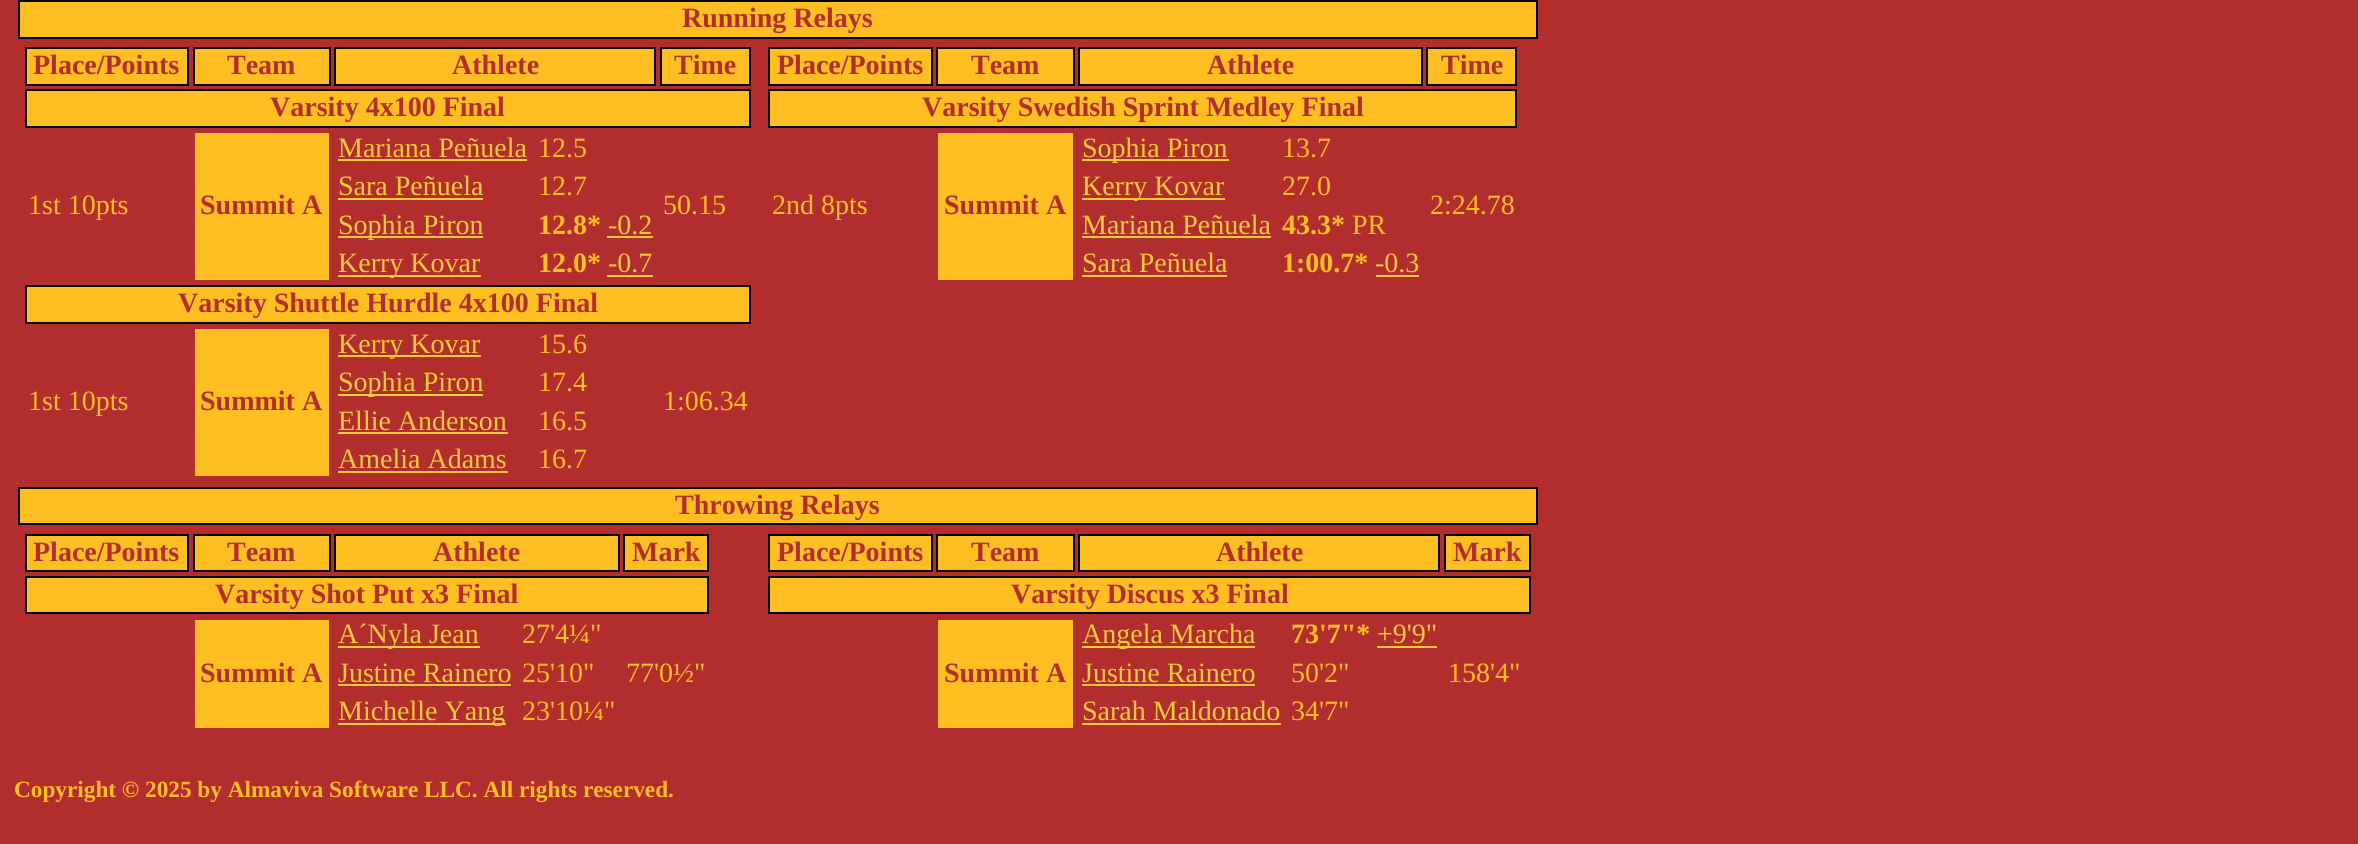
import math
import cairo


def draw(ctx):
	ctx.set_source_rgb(0.698, 0.18, 0.18)
	ctx.paint()
	ctx.set_source_rgb(1, 0.749, 0.137)
	ctx.rectangle(19, 1, 1518, 37)
	ctx.fill_preserve()
	ctx.set_source_rgb(0, 0, 0)
	ctx.stroke()
	ctx.select_font_face('Liberation Serif', cairo.FONT_SLANT_NORMAL, cairo.FONT_WEIGHT_BOLD)
	ctx.set_font_size(28)
	ctx.set_source_rgb(0.698, 0.18, 0.18)
	ctx.move_to(682, 27)
	ctx.show_text('Running Relays')
	ctx.set_source_rgb(1, 0.749, 0.137)
	ctx.rectangle(26, 48, 162, 37)
	ctx.fill_preserve()
	ctx.set_source_rgb(0, 0, 0)
	ctx.stroke()
	ctx.set_source_rgb(0.698, 0.18, 0.18)
	ctx.move_to(33, 74)
	ctx.show_text('Place/Points')
	ctx.set_source_rgb(1, 0.749, 0.137)
	ctx.rectangle(194, 48, 136, 37)
	ctx.fill_preserve()
	ctx.set_source_rgb(0, 0, 0)
	ctx.stroke()
	ctx.set_source_rgb(0.698, 0.18, 0.18)
	ctx.move_to(227, 74)
	ctx.show_text('Team')
	ctx.set_source_rgb(1, 0.749, 0.137)
	ctx.rectangle(335, 48, 320, 37)
	ctx.fill_preserve()
	ctx.set_source_rgb(0, 0, 0)
	ctx.stroke()
	ctx.set_source_rgb(0.698, 0.18, 0.18)
	ctx.move_to(452, 74)
	ctx.show_text('Athlete')
	ctx.set_source_rgb(1, 0.749, 0.137)
	ctx.rectangle(661, 48, 89, 37)
	ctx.fill_preserve()
	ctx.set_source_rgb(0, 0, 0)
	ctx.stroke()
	ctx.set_source_rgb(0.698, 0.18, 0.18)
	ctx.move_to(674, 74)
	ctx.show_text('Time')
	ctx.set_source_rgb(1, 0.749, 0.137)
	ctx.rectangle(26, 90, 724, 37)
	ctx.fill_preserve()
	ctx.set_source_rgb(0, 0, 0)
	ctx.stroke()
	ctx.set_source_rgb(0.698, 0.18, 0.18)
	ctx.move_to(270, 116)
	ctx.show_text('Varsity 4x100 Final')
	ctx.select_font_face('Liberation Serif')
	ctx.set_source_rgb(0.961, 0.796, 0.231)
	ctx.move_to(338, 157)
	ctx.show_text('Mariana Peñuela')
	ctx.rectangle(338, 159, 189, 2)
	ctx.fill()
	ctx.set_source_rgb(1, 0.749, 0.137)
	ctx.move_to(538, 157)
	ctx.show_text('12.5')
	ctx.move_to(28, 214)
	ctx.show_text('1st 10pts')
	ctx.rectangle(195, 133, 134, 147)
	ctx.fill()
	ctx.select_font_face('Liberation Serif', cairo.FONT_SLANT_NORMAL, cairo.FONT_WEIGHT_BOLD)
	ctx.set_source_rgb(0.698, 0.18, 0.18)
	ctx.move_to(200, 214)
	ctx.show_text('Summit A')
	ctx.select_font_face('Liberation Serif')
	ctx.set_source_rgb(1, 0.749, 0.137)
	ctx.move_to(663, 214)
	ctx.show_text('50.15')
	ctx.set_source_rgb(0.961, 0.796, 0.231)
	ctx.move_to(338, 195)
	ctx.show_text('Sara Peñuela')
	ctx.rectangle(338, 198, 145, 2)
	ctx.fill()
	ctx.set_source_rgb(1, 0.749, 0.137)
	ctx.move_to(538, 195)
	ctx.show_text('12.7')
	ctx.set_source_rgb(0.961, 0.796, 0.231)
	ctx.rectangle(338, 236, 145, 2)
	ctx.fill()
	ctx.move_to(338, 234)
	ctx.show_text('Sophia Piron')
	ctx.select_font_face('Liberation Serif', cairo.FONT_SLANT_NORMAL, cairo.FONT_WEIGHT_BOLD)
	ctx.set_source_rgb(1, 0.749, 0.137)
	ctx.move_to(538, 234)
	ctx.show_text('12.8*')
	ctx.select_font_face('Liberation Serif')
	ctx.set_source_rgb(0.961, 0.796, 0.231)
	ctx.move_to(608, 234)
	ctx.show_text('-0.2')
	ctx.rectangle(607, 236, 46, 2)
	ctx.fill()
	ctx.rectangle(338, 275, 143, 2)
	ctx.fill()
	ctx.move_to(338, 272)
	ctx.show_text('Kerry Kovar')
	ctx.select_font_face('Liberation Serif', cairo.FONT_SLANT_NORMAL, cairo.FONT_WEIGHT_BOLD)
	ctx.set_source_rgb(1, 0.749, 0.137)
	ctx.move_to(538, 272)
	ctx.show_text('12.0*')
	ctx.select_font_face('Liberation Serif')
	ctx.set_source_rgb(0.961, 0.796, 0.231)
	ctx.move_to(608, 272)
	ctx.show_text('-0.7')
	ctx.rectangle(607, 275, 46, 2)
	ctx.fill()
	ctx.set_source_rgb(1, 0.749, 0.137)
	ctx.rectangle(26, 286, 724, 37)
	ctx.fill_preserve()
	ctx.set_source_rgb(0, 0, 0)
	ctx.stroke()
	ctx.select_font_face('Liberation Serif', cairo.FONT_SLANT_NORMAL, cairo.FONT_WEIGHT_BOLD)
	ctx.set_source_rgb(0.698, 0.18, 0.18)
	ctx.move_to(178, 312)
	ctx.show_text('Varsity Shuttle Hurdle 4x100 Final')
	ctx.set_source_rgb(0.961, 0.796, 0.231)
	ctx.rectangle(338, 355, 143, 2)
	ctx.fill()
	ctx.select_font_face('Liberation Serif')
	ctx.move_to(338, 353)
	ctx.show_text('Kerry Kovar')
	ctx.set_source_rgb(1, 0.749, 0.137)
	ctx.move_to(538, 353)
	ctx.show_text('15.6')
	ctx.move_to(28, 410)
	ctx.show_text('1st 10pts')
	ctx.rectangle(195, 329, 134, 147)
	ctx.fill()
	ctx.select_font_face('Liberation Serif', cairo.FONT_SLANT_NORMAL, cairo.FONT_WEIGHT_BOLD)
	ctx.set_source_rgb(0.698, 0.18, 0.18)
	ctx.move_to(200, 410)
	ctx.show_text('Summit A')
	ctx.select_font_face('Liberation Serif')
	ctx.set_source_rgb(1, 0.749, 0.137)
	ctx.move_to(663, 410)
	ctx.show_text('1:06.34')
	ctx.set_source_rgb(0.961, 0.796, 0.231)
	ctx.rectangle(338, 394, 145, 2)
	ctx.fill()
	ctx.move_to(338, 391)
	ctx.show_text('Sophia Piron')
	ctx.set_source_rgb(1, 0.749, 0.137)
	ctx.move_to(538, 391)
	ctx.show_text('17.4')
	ctx.set_source_rgb(0.961, 0.796, 0.231)
	ctx.move_to(338, 430)
	ctx.show_text('Ellie Anderson')
	ctx.rectangle(338, 432, 170, 2)
	ctx.fill()
	ctx.set_source_rgb(1, 0.749, 0.137)
	ctx.move_to(538, 430)
	ctx.show_text('16.5')
	ctx.set_source_rgb(0.961, 0.796, 0.231)
	ctx.move_to(338, 468)
	ctx.show_text('Amelia Adams')
	ctx.rectangle(338, 471, 170, 2)
	ctx.fill()
	ctx.set_source_rgb(1, 0.749, 0.137)
	ctx.move_to(538, 468)
	ctx.show_text('16.7')
	ctx.rectangle(769, 48, 163, 37)
	ctx.fill_preserve()
	ctx.set_source_rgb(0, 0, 0)
	ctx.stroke()
	ctx.select_font_face('Liberation Serif', cairo.FONT_SLANT_NORMAL, cairo.FONT_WEIGHT_BOLD)
	ctx.set_source_rgb(0.698, 0.18, 0.18)
	ctx.move_to(777, 74)
	ctx.show_text('Place/Points')
	ctx.set_source_rgb(1, 0.749, 0.137)
	ctx.rectangle(937, 48, 137, 37)
	ctx.fill_preserve()
	ctx.set_source_rgb(0, 0, 0)
	ctx.stroke()
	ctx.set_source_rgb(0.698, 0.18, 0.18)
	ctx.move_to(971, 74)
	ctx.show_text('Team')
	ctx.set_source_rgb(1, 0.749, 0.137)
	ctx.rectangle(1079, 48, 343, 37)
	ctx.fill_preserve()
	ctx.set_source_rgb(0, 0, 0)
	ctx.stroke()
	ctx.set_source_rgb(0.698, 0.18, 0.18)
	ctx.move_to(1207, 74)
	ctx.show_text('Athlete')
	ctx.set_source_rgb(1, 0.749, 0.137)
	ctx.rectangle(1427, 48, 89, 37)
	ctx.fill_preserve()
	ctx.set_source_rgb(0, 0, 0)
	ctx.stroke()
	ctx.set_source_rgb(0.698, 0.18, 0.18)
	ctx.move_to(1441, 74)
	ctx.show_text('Time')
	ctx.set_source_rgb(1, 0.749, 0.137)
	ctx.rectangle(769, 90, 747, 37)
	ctx.fill_preserve()
	ctx.set_source_rgb(0, 0, 0)
	ctx.stroke()
	ctx.set_source_rgb(0.698, 0.18, 0.18)
	ctx.move_to(922, 116)
	ctx.show_text('Varsity Swedish Sprint Medley Final')
	ctx.set_source_rgb(0.961, 0.796, 0.231)
	ctx.rectangle(1082, 159, 147, 2)
	ctx.fill()
	ctx.select_font_face('Liberation Serif')
	ctx.move_to(1082, 157)
	ctx.show_text('Sophia Piron')
	ctx.set_source_rgb(1, 0.749, 0.137)
	ctx.move_to(1282, 157)
	ctx.show_text('13.7')
	ctx.move_to(772, 214)
	ctx.show_text('2nd 8pts')
	ctx.rectangle(938, 133, 135, 147)
	ctx.fill()
	ctx.select_font_face('Liberation Serif', cairo.FONT_SLANT_NORMAL, cairo.FONT_WEIGHT_BOLD)
	ctx.set_source_rgb(0.698, 0.18, 0.18)
	ctx.move_to(944, 214)
	ctx.show_text('Summit A')
	ctx.select_font_face('Liberation Serif')
	ctx.set_source_rgb(1, 0.749, 0.137)
	ctx.move_to(1430, 214)
	ctx.show_text('2:24.78')
	ctx.set_source_rgb(0.961, 0.796, 0.231)
	ctx.rectangle(1082, 198, 143, 2)
	ctx.fill()
	ctx.move_to(1082, 195)
	ctx.show_text('Kerry Kovar')
	ctx.set_source_rgb(1, 0.749, 0.137)
	ctx.move_to(1282, 195)
	ctx.show_text('27.0')
	ctx.set_source_rgb(0.961, 0.796, 0.231)
	ctx.move_to(1082, 234)
	ctx.show_text('Mariana Peñuela')
	ctx.rectangle(1082, 236, 189, 2)
	ctx.fill()
	ctx.select_font_face('Liberation Serif', cairo.FONT_SLANT_NORMAL, cairo.FONT_WEIGHT_BOLD)
	ctx.set_source_rgb(1, 0.749, 0.137)
	ctx.move_to(1282, 234)
	ctx.show_text('43.3*')
	ctx.select_font_face('Liberation Serif')
	ctx.move_to(1352, 234)
	ctx.show_text('PR')
	ctx.set_source_rgb(0.961, 0.796, 0.231)
	ctx.move_to(1082, 272)
	ctx.show_text('Sara Peñuela')
	ctx.rectangle(1082, 275, 145, 2)
	ctx.fill()
	ctx.select_font_face('Liberation Serif', cairo.FONT_SLANT_NORMAL, cairo.FONT_WEIGHT_BOLD)
	ctx.set_source_rgb(1, 0.749, 0.137)
	ctx.move_to(1282, 272)
	ctx.show_text('1:00.7*')
	ctx.select_font_face('Liberation Serif')
	ctx.set_source_rgb(0.961, 0.796, 0.231)
	ctx.move_to(1375, 272)
	ctx.show_text('-0.3')
	ctx.rectangle(1376, 275, 43, 2)
	ctx.fill()
	ctx.set_source_rgb(1, 0.749, 0.137)
	ctx.rectangle(19, 488, 1518, 36)
	ctx.fill_preserve()
	ctx.set_source_rgb(0, 0, 0)
	ctx.stroke()
	ctx.select_font_face('Liberation Serif', cairo.FONT_SLANT_NORMAL, cairo.FONT_WEIGHT_BOLD)
	ctx.set_source_rgb(0.698, 0.18, 0.18)
	ctx.move_to(675, 514)
	ctx.show_text('Throwing Relays')
	ctx.set_source_rgb(1, 0.749, 0.137)
	ctx.rectangle(26, 535, 162, 36)
	ctx.fill_preserve()
	ctx.set_source_rgb(0, 0, 0)
	ctx.stroke()
	ctx.set_source_rgb(0.698, 0.18, 0.18)
	ctx.move_to(33, 561)
	ctx.show_text('Place/Points')
	ctx.set_source_rgb(1, 0.749, 0.137)
	ctx.rectangle(194, 535, 136, 36)
	ctx.fill_preserve()
	ctx.set_source_rgb(0, 0, 0)
	ctx.stroke()
	ctx.set_source_rgb(0.698, 0.18, 0.18)
	ctx.move_to(227, 561)
	ctx.show_text('Team')
	ctx.set_source_rgb(1, 0.749, 0.137)
	ctx.rectangle(335, 535, 284, 36)
	ctx.fill_preserve()
	ctx.set_source_rgb(0, 0, 0)
	ctx.stroke()
	ctx.set_source_rgb(0.698, 0.18, 0.18)
	ctx.move_to(433, 561)
	ctx.show_text('Athlete')
	ctx.set_source_rgb(1, 0.749, 0.137)
	ctx.rectangle(624, 535, 84, 36)
	ctx.fill_preserve()
	ctx.set_source_rgb(0, 0, 0)
	ctx.stroke()
	ctx.set_source_rgb(0.698, 0.18, 0.18)
	ctx.move_to(632, 561)
	ctx.show_text('Mark')
	ctx.set_source_rgb(1, 0.749, 0.137)
	ctx.rectangle(26, 577, 682, 36)
	ctx.fill_preserve()
	ctx.set_source_rgb(0, 0, 0)
	ctx.stroke()
	ctx.set_source_rgb(0.698, 0.18, 0.18)
	ctx.move_to(215, 603)
	ctx.show_text('Varsity Shot Put x3 Final')
	ctx.set_source_rgb(0.961, 0.796, 0.231)
	ctx.rectangle(338, 646, 142, 2)
	ctx.fill()
	ctx.select_font_face('Liberation Serif')
	ctx.move_to(338, 643)
	ctx.show_text('A´Nyla Jean')
	ctx.set_source_rgb(1, 0.749, 0.137)
	ctx.move_to(522, 643)
	ctx.show_text('27\'4¼"')
	ctx.rectangle(195, 620, 134, 108)
	ctx.fill()
	ctx.select_font_face('Liberation Serif', cairo.FONT_SLANT_NORMAL, cairo.FONT_WEIGHT_BOLD)
	ctx.set_source_rgb(0.698, 0.18, 0.18)
	ctx.move_to(200, 682)
	ctx.show_text('Summit A')
	ctx.select_font_face('Liberation Serif')
	ctx.set_source_rgb(1, 0.749, 0.137)
	ctx.move_to(626, 682)
	ctx.show_text('77\'0½"')
	ctx.set_source_rgb(0.961, 0.796, 0.231)
	ctx.move_to(338, 682)
	ctx.show_text('Justine Rainero')
	ctx.rectangle(338, 684, 173, 2)
	ctx.fill()
	ctx.set_source_rgb(1, 0.749, 0.137)
	ctx.move_to(522, 682)
	ctx.show_text('25\'10"')
	ctx.set_source_rgb(0.961, 0.796, 0.231)
	ctx.rectangle(338, 723, 168, 2)
	ctx.fill()
	ctx.move_to(338, 720)
	ctx.show_text('Michelle Yang')
	ctx.set_source_rgb(1, 0.749, 0.137)
	ctx.move_to(522, 720)
	ctx.show_text('23\'10¼"')
	ctx.rectangle(769, 535, 163, 36)
	ctx.fill_preserve()
	ctx.set_source_rgb(0, 0, 0)
	ctx.stroke()
	ctx.select_font_face('Liberation Serif', cairo.FONT_SLANT_NORMAL, cairo.FONT_WEIGHT_BOLD)
	ctx.set_source_rgb(0.698, 0.18, 0.18)
	ctx.move_to(777, 561)
	ctx.show_text('Place/Points')
	ctx.set_source_rgb(1, 0.749, 0.137)
	ctx.rectangle(937, 535, 137, 36)
	ctx.fill_preserve()
	ctx.set_source_rgb(0, 0, 0)
	ctx.stroke()
	ctx.set_source_rgb(0.698, 0.18, 0.18)
	ctx.move_to(971, 561)
	ctx.show_text('Team')
	ctx.set_source_rgb(1, 0.749, 0.137)
	ctx.rectangle(1079, 535, 360, 36)
	ctx.fill_preserve()
	ctx.set_source_rgb(0, 0, 0)
	ctx.stroke()
	ctx.set_source_rgb(0.698, 0.18, 0.18)
	ctx.move_to(1216, 561)
	ctx.show_text('Athlete')
	ctx.set_source_rgb(1, 0.749, 0.137)
	ctx.rectangle(1445, 535, 85, 36)
	ctx.fill_preserve()
	ctx.set_source_rgb(0, 0, 0)
	ctx.stroke()
	ctx.set_source_rgb(0.698, 0.18, 0.18)
	ctx.move_to(1453, 561)
	ctx.show_text('Mark')
	ctx.set_source_rgb(1, 0.749, 0.137)
	ctx.rectangle(769, 577, 761, 36)
	ctx.fill_preserve()
	ctx.set_source_rgb(0, 0, 0)
	ctx.stroke()
	ctx.set_source_rgb(0.698, 0.18, 0.18)
	ctx.move_to(1011, 603)
	ctx.show_text('Varsity Discus x3 Final')
	ctx.set_source_rgb(0.961, 0.796, 0.231)
	ctx.rectangle(1082, 646, 173, 2)
	ctx.fill()
	ctx.select_font_face('Liberation Serif')
	ctx.move_to(1082, 643)
	ctx.show_text('Angela Marcha')
	ctx.select_font_face('Liberation Serif', cairo.FONT_SLANT_NORMAL, cairo.FONT_WEIGHT_BOLD)
	ctx.set_source_rgb(1, 0.749, 0.137)
	ctx.move_to(1291, 643)
	ctx.show_text('73\'7"*')
	ctx.select_font_face('Liberation Serif')
	ctx.set_source_rgb(0.961, 0.796, 0.231)
	ctx.move_to(1377, 643)
	ctx.show_text('+9\'9"')
	ctx.rectangle(1377, 646, 60, 2)
	ctx.fill()
	ctx.set_source_rgb(1, 0.749, 0.137)
	ctx.rectangle(938, 620, 135, 108)
	ctx.fill()
	ctx.select_font_face('Liberation Serif', cairo.FONT_SLANT_NORMAL, cairo.FONT_WEIGHT_BOLD)
	ctx.set_source_rgb(0.698, 0.18, 0.18)
	ctx.move_to(944, 682)
	ctx.show_text('Summit A')
	ctx.select_font_face('Liberation Serif')
	ctx.set_source_rgb(1, 0.749, 0.137)
	ctx.move_to(1448, 682)
	ctx.show_text('158\'4"')
	ctx.set_source_rgb(0.961, 0.796, 0.231)
	ctx.move_to(1082, 682)
	ctx.show_text('Justine Rainero')
	ctx.rectangle(1082, 684, 173, 2)
	ctx.fill()
	ctx.set_source_rgb(1, 0.749, 0.137)
	ctx.move_to(1291, 682)
	ctx.show_text('50\'2"')
	ctx.set_source_rgb(0.961, 0.796, 0.231)
	ctx.move_to(1082, 720)
	ctx.show_text('Sarah Maldonado')
	ctx.rectangle(1082, 723, 199, 2)
	ctx.fill()
	ctx.set_source_rgb(1, 0.749, 0.137)
	ctx.move_to(1291, 720)
	ctx.show_text('34\'7"')
	ctx.select_font_face('Liberation Serif', cairo.FONT_SLANT_NORMAL, cairo.FONT_WEIGHT_BOLD)
	ctx.set_font_size(23.25)
	ctx.move_to(14, 797)
	ctx.show_text('Copyright © 2025 by Almaviva Software LLC. All rights reserved.')


surface = cairo.ImageSurface(cairo.FORMAT_RGB24, 2358, 844)
ctx = cairo.Context(surface)
options = cairo.FontOptions()
options.set_hint_metrics(cairo.HINT_METRICS_OFF)
options.set_hint_style(cairo.HINT_STYLE_NONE)
ctx.set_font_options(options)
ctx.set_miter_limit(4)
draw(ctx)
surface.write_to_png('image.png')
